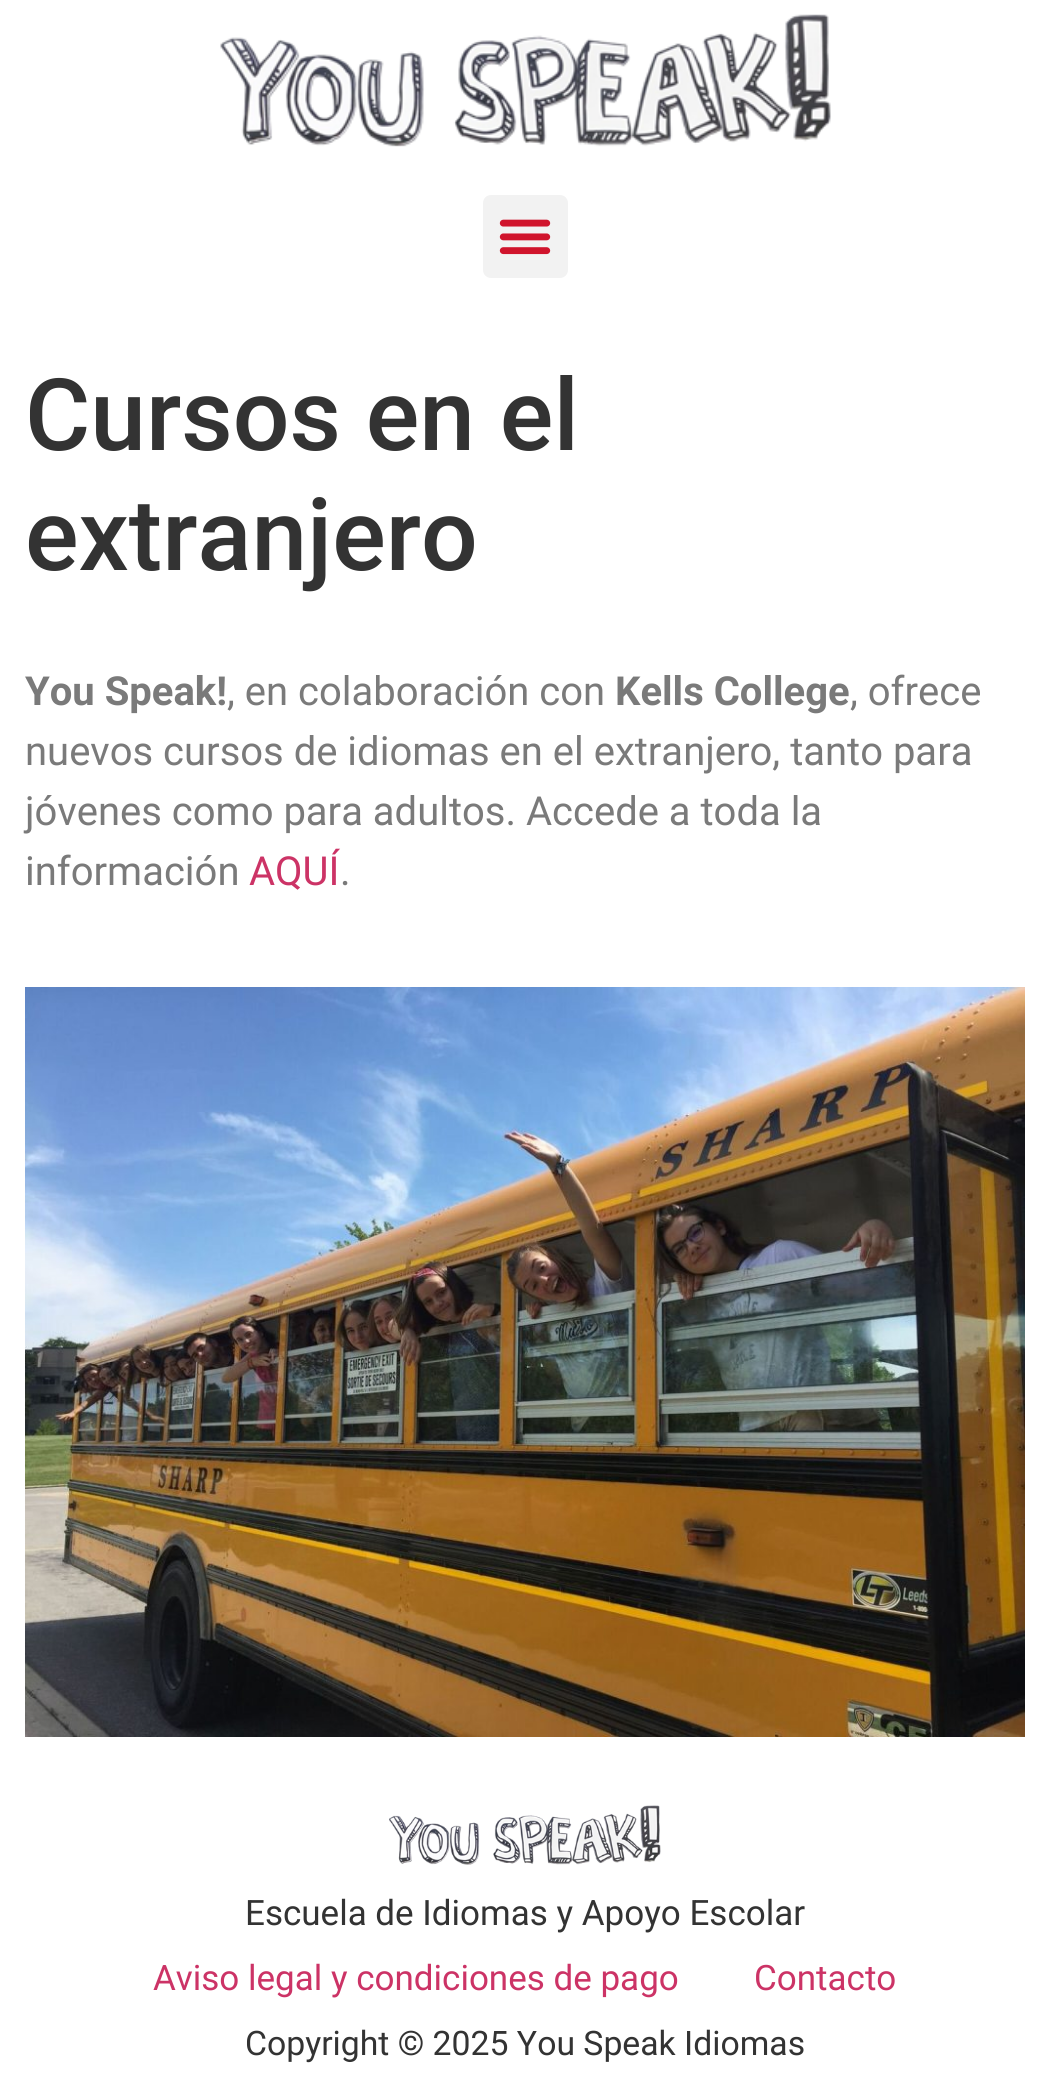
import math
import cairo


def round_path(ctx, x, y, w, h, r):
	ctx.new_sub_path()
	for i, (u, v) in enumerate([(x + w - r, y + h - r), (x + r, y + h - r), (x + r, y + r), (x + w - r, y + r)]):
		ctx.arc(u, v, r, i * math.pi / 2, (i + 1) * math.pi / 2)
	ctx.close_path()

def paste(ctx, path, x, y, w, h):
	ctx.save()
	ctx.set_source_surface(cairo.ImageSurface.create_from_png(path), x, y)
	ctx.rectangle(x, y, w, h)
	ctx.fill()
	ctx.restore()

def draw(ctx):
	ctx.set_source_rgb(1, 1, 1)
	ctx.paint()
	paste(ctx, 'media/1.png', 220, 14, 611, 133)
	ctx.set_source_rgb(0.949, 0.949, 0.949)
	round_path(ctx, 483, 195, 85, 83, 8)
	ctx.fill()
	paste(ctx, 'media/2.png', 499, 219, 52, 36)
	ctx.select_font_face('Roboto Medium')
	ctx.set_font_size(100)
	ctx.set_source_rgb(0.2, 0.2, 0.2)
	ctx.move_to(25, 450)
	ctx.show_text('Cursos en el')
	ctx.move_to(25, 570)
	ctx.show_text('extranjero')
	ctx.select_font_face('Roboto', cairo.FONT_SLANT_NORMAL, cairo.FONT_WEIGHT_BOLD)
	ctx.set_font_size(40)
	ctx.set_source_rgb(0.478, 0.478, 0.478)
	ctx.move_to(25, 705)
	ctx.show_text('You Speak!')
	ctx.select_font_face('Roboto')
	ctx.move_to(227, 705)
	ctx.show_text(', en colaboración con')
	ctx.select_font_face('Roboto', cairo.FONT_SLANT_NORMAL, cairo.FONT_WEIGHT_BOLD)
	ctx.move_to(615, 705)
	ctx.show_text('Kells College')
	ctx.select_font_face('Roboto')
	for x, y, s in [
		(850, 705, ', ofrece'),
		(25, 765, 'nuevos cursos de idiomas en el extranjero, tanto para'),
		(25, 825, 'jóvenes como para adultos. Accede a toda la'),
		(25, 885, 'información'),
	]:
		ctx.move_to(x, y)
		ctx.show_text(s)
	ctx.set_source_rgb(0.8, 0.2, 0.4)
	ctx.move_to(249, 885)
	ctx.show_text('AQUÍ')
	ctx.set_source_rgb(0.478, 0.478, 0.478)
	ctx.move_to(340, 885)
	ctx.show_text('.')
	paste(ctx, 'media/3.png', 25, 987, 1000, 750)
	paste(ctx, 'media/4.png', 389, 1805, 272, 60)
	ctx.set_font_size(35)
	ctx.set_source_rgb(0.2, 0.2, 0.2)
	ctx.move_to(245, 1925)
	ctx.show_text('Escuela de Idiomas y Apoyo Escolar')
	ctx.set_source_rgb(0.8, 0.2, 0.4)
	ctx.move_to(153, 1990)
	ctx.show_text('Aviso legal y condiciones de pago')
	ctx.move_to(754, 1990)
	ctx.show_text('Contacto')
	ctx.set_font_size(33.75)
	ctx.set_source_rgb(0.2, 0.2, 0.2)
	ctx.move_to(245, 2055)
	ctx.show_text('Copyright © 2025 You Speak Idiomas')


surface = cairo.ImageSurface(cairo.FORMAT_RGB24, 1050, 2092)
ctx = cairo.Context(surface)
options = cairo.FontOptions()
options.set_hint_metrics(cairo.HINT_METRICS_OFF)
options.set_hint_style(cairo.HINT_STYLE_NONE)
ctx.set_font_options(options)
ctx.set_miter_limit(4)
draw(ctx)
surface.write_to_png('image.png')
